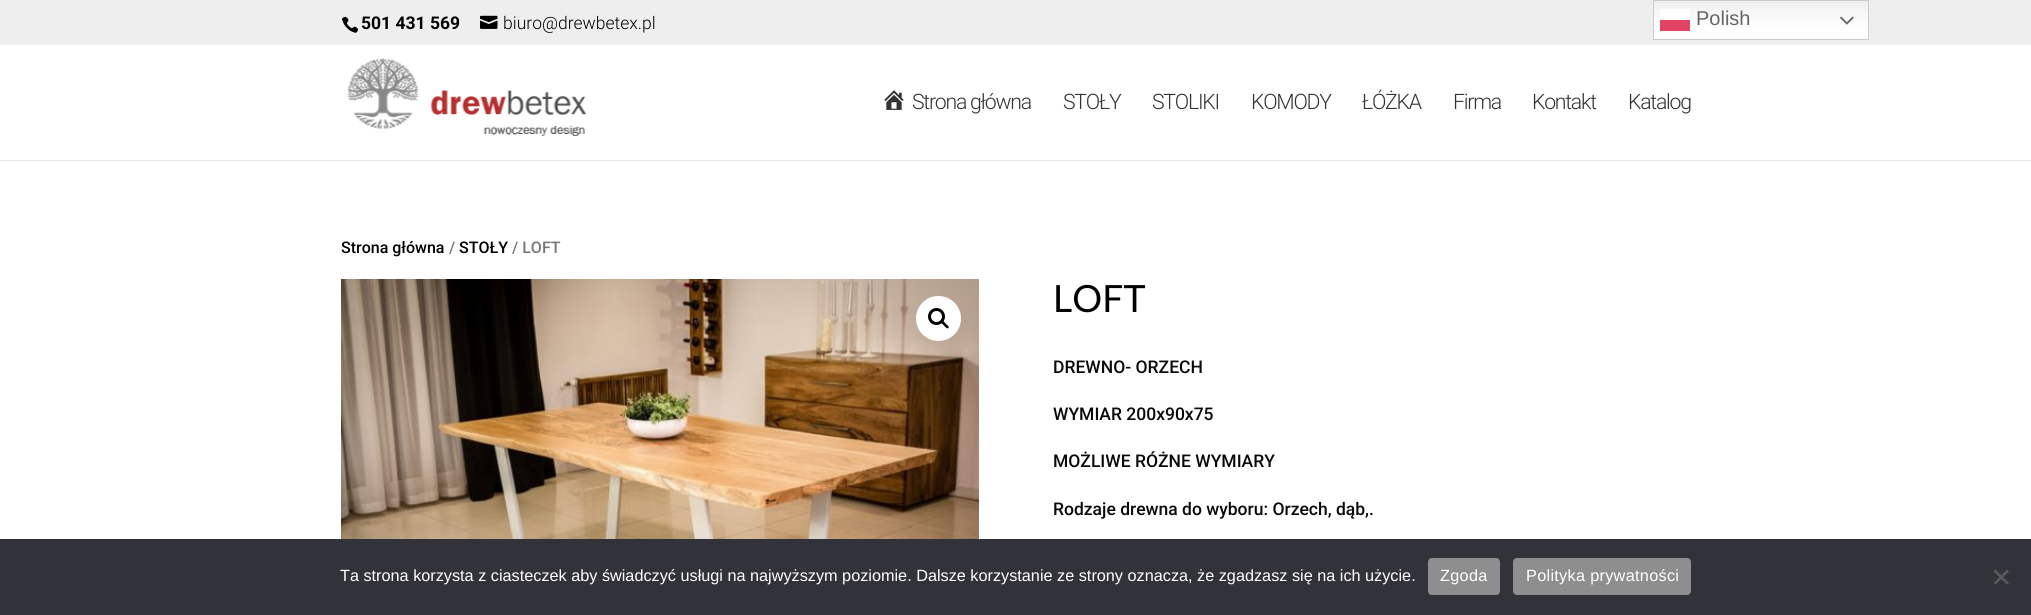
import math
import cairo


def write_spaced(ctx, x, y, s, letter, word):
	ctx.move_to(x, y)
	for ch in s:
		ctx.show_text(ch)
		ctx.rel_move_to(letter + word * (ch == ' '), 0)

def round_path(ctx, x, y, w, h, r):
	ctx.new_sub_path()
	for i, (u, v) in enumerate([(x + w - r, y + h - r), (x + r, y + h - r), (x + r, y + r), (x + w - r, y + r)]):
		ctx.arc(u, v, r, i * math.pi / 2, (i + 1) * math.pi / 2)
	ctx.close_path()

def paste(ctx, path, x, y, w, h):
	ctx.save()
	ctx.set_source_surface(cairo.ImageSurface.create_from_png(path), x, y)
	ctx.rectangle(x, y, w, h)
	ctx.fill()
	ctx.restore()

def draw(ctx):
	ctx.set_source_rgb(1, 1, 1)
	ctx.paint()
	ctx.set_source_rgb(0.933, 0.933, 0.933)
	ctx.rectangle(0, 0, 2031, 45)
	ctx.fill()
	paste(ctx, 'media/1.png', 342, 16, 16, 17)
	ctx.select_font_face('Roboto', cairo.FONT_SLANT_NORMAL, cairo.FONT_WEIGHT_BOLD)
	ctx.set_font_size(17.5)
	ctx.set_source_rgb(0, 0, 0)
	ctx.move_to(361, 29)
	ctx.show_text('501 431 569')
	paste(ctx, 'media/2.png', 480, 15, 18, 14)
	ctx.select_font_face('Roboto Light')
	ctx.move_to(503, 29)
	ctx.show_text('biuro@drewbetex.pl')
	ctx.set_source_rgb(0.902, 0.902, 0.902)
	ctx.rectangle(0, 160, 2031, 1)
	ctx.fill()
	paste(ctx, 'media/3.png', 347, 58, 240, 78)
	paste(ctx, 'media/4.png', 884, 90, 20, 20)
	ctx.set_font_size(21.25)
	ctx.set_source_rgb(0.2, 0.2, 0.2)
	for x, y, s in [
		(912, 109, 'Strona główna'),
		(1063, 109, 'STOŁY'),
		(1152, 109, 'STOLIKI'),
		(1251, 109, 'KOMODY'),
		(1362, 109, 'ŁÓŻKA'),
		(1453, 109, 'Firma'),
		(1532, 109, 'Kontakt'),
		(1628, 109, 'Katalog'),
	]:
		write_spaced(ctx, x, y, s, -1.25, 0)
	ctx.select_font_face('Roboto Medium')
	ctx.set_font_size(16)
	ctx.set_source_rgb(0, 0, 0)
	ctx.move_to(341, 253)
	ctx.show_text('Strona główna')
	ctx.set_source_rgb(0.463, 0.463, 0.463)
	ctx.move_to(449, 253)
	ctx.show_text('/')
	ctx.set_source_rgb(0, 0, 0)
	ctx.move_to(459, 253)
	ctx.show_text('STOŁY')
	ctx.set_source_rgb(0.463, 0.463, 0.463)
	ctx.move_to(512, 253)
	ctx.show_text('/ LOFT')
	paste(ctx, 'media/5.png', 341, 279, 638, 260)
	ctx.set_source_rgb(1, 1, 1)
	ctx.arc(938.5, 318.5, 22.5, 0, 2 * math.pi)
	ctx.fill()
	ctx.arc(936.5, 316.5, 7, 0, 2 * math.pi)
	ctx.set_source_rgb(0, 0, 0)
	ctx.set_line_width(3)
	ctx.stroke()
	ctx.new_path()
	ctx.move_to(941, 321)
	ctx.curve_to(942.5, 319.5, 945, 323, 945.5, 323.5)
	ctx.curve_to(946.5, 324.5, 949.5, 326.5, 948.5, 328)
	ctx.curve_to(947, 329.5, 944.5, 326, 944, 325.5)
	ctx.curve_to(943, 324.5, 940, 322.5, 941, 321)
	ctx.close_path()
	ctx.fill()
	ctx.select_font_face('Lato')
	ctx.set_font_size(37.5)
	ctx.move_to(1053, 312)
	ctx.show_text('LOFT')
	ctx.select_font_face('Roboto Medium')
	ctx.set_font_size(17.5)
	ctx.set_source_rgb(0.039, 0.039, 0.039)
	for x, y, s in [
		(1053, 373, 'DREWNO- ORZECH'),
		(1053, 420, 'WYMIAR 200x90x75'),
		(1053, 467, 'MOŻLIWE RÓŻNE WYMIARY'),
		(1053, 515, 'Rodzaje drewna do wyboru: Orzech, dąb,.'),
	]:
		ctx.move_to(x, y)
		ctx.show_text(s)
	gradient = cairo.LinearGradient(1761, 0, 1761, 40)
	gradient.add_color_stop_rgba(0, 0.937, 0.937, 0.937, 1)
	gradient.add_color_stop_rgba(0.7, 1, 1, 1, 1)
	ctx.set_source(gradient)
	ctx.rectangle(1654, 3, 214, 36)
	ctx.fill()
	gradient = cairo.LinearGradient(1761, 0, 1761, 40)
	gradient.add_color_stop_rgba(0, 0.988, 0.988, 0.988, 1)
	gradient.add_color_stop_rgba(0.7, 1, 1, 1, 1)
	ctx.set_source(gradient)
	ctx.rectangle(1660, 9, 30, 11)
	ctx.fill()
	ctx.rectangle(1653.5, 0.5, 215, 39)
	ctx.set_source_rgb(0.8, 0.8, 0.8)
	ctx.set_line_width(1)
	ctx.stroke()
	ctx.set_source_rgb(0.89, 0.263, 0.388)
	ctx.rectangle(1660, 20, 30, 11)
	ctx.fill()
	ctx.select_font_face('Liberation Sans')
	ctx.set_font_size(20)
	ctx.set_source_rgb(0.4, 0.4, 0.4)
	ctx.move_to(1696, 25)
	ctx.show_text('Polish')
	paste(ctx, 'media/6.png', 1840, 16, 14, 9)
	ctx.set_source_rgb(0.196, 0.196, 0.227)
	ctx.rectangle(0, 539, 2031, 76)
	ctx.fill()
	ctx.set_font_size(16.25)
	ctx.set_source_rgb(1, 1, 1)
	ctx.move_to(340, 581)
	ctx.show_text('Ta strona korzysta z ciasteczek aby świadczyć usługi na najwyższym poziomie. Dalsze korzystanie ze strony oznacza, że zgadzasz się na ich użycie.')
	ctx.set_source_rgb(0.557, 0.557, 0.557)
	round_path(ctx, 1428, 558, 72, 37, 4)
	ctx.fill()
	ctx.set_source_rgb(1, 1, 1)
	write_spaced(ctx, 1440, 581, 'Zgoda', 0.3, 0)
	ctx.set_source_rgb(0.557, 0.557, 0.557)
	round_path(ctx, 1513, 558, 178, 37, 4)
	ctx.fill()
	ctx.set_source_rgb(1, 1, 1)
	write_spaced(ctx, 1526, 581, 'Polityka prywatności', 0.3, 0)
	ctx.set_source_rgb(0.349, 0.349, 0.365)
	ctx.new_path()
	ctx.move_to(2007, 569.5)
	ctx.line_to(2009, 571.5)
	ctx.line_to(1995.5, 584.5)
	ctx.line_to(1993.5, 583)
	ctx.close_path()
	ctx.fill()
	ctx.new_path()
	ctx.move_to(1993.5, 571.5)
	ctx.line_to(1995.5, 569.5)
	ctx.line_to(2009, 583)
	ctx.line_to(2007, 584.5)
	ctx.close_path()
	ctx.fill()


surface = cairo.ImageSurface(cairo.FORMAT_RGB24, 2031, 615)
ctx = cairo.Context(surface)
options = cairo.FontOptions()
options.set_hint_metrics(cairo.HINT_METRICS_OFF)
options.set_hint_style(cairo.HINT_STYLE_NONE)
ctx.set_font_options(options)
ctx.set_miter_limit(4)
draw(ctx)
surface.write_to_png('image.png')
